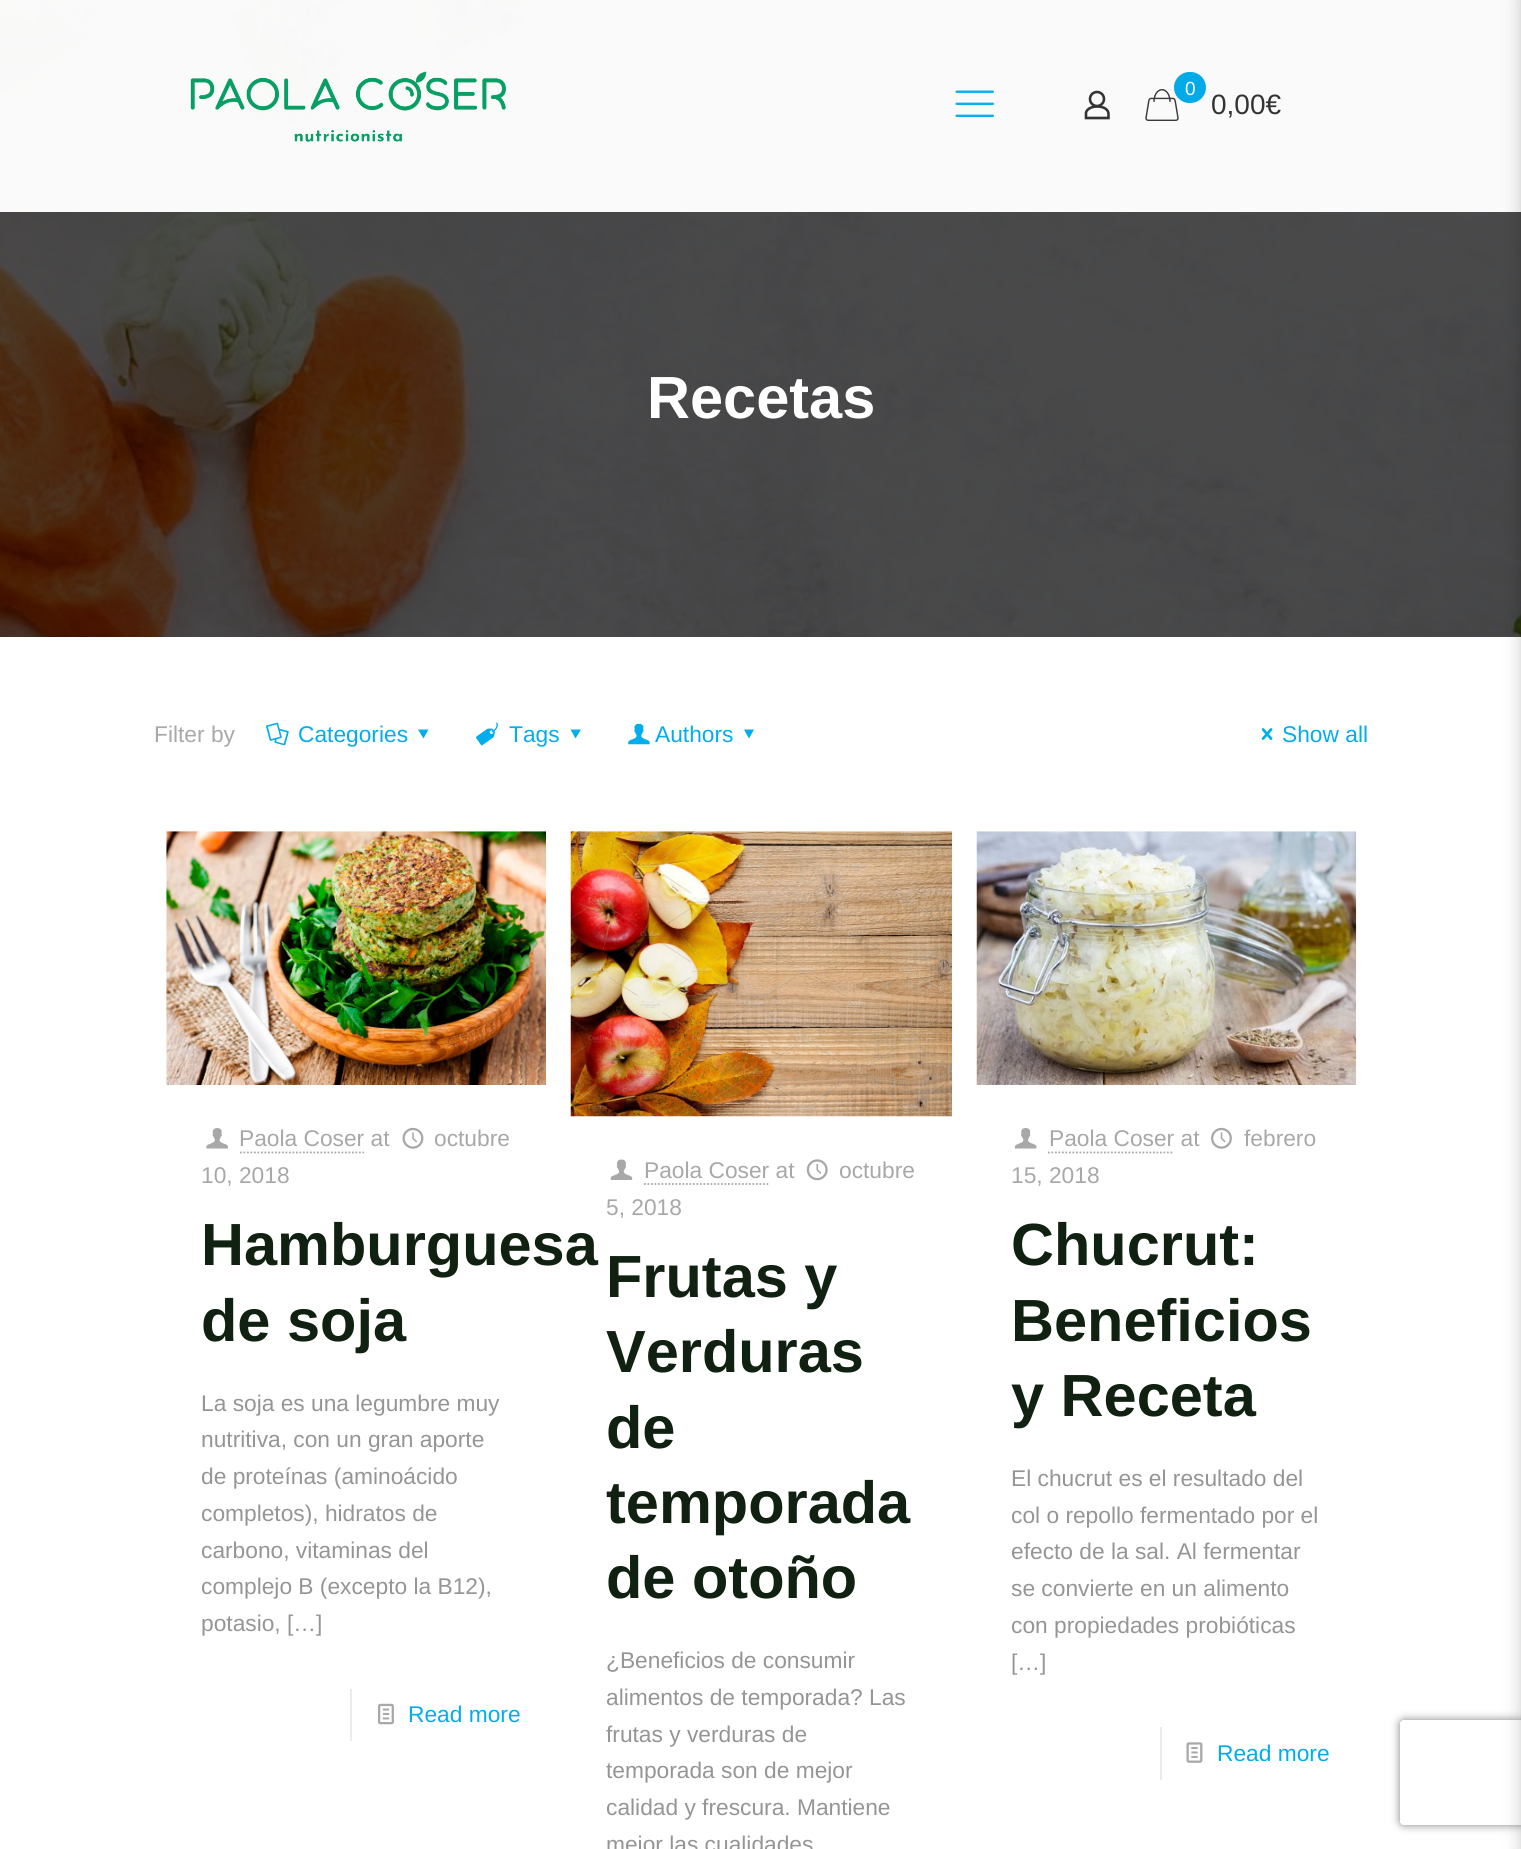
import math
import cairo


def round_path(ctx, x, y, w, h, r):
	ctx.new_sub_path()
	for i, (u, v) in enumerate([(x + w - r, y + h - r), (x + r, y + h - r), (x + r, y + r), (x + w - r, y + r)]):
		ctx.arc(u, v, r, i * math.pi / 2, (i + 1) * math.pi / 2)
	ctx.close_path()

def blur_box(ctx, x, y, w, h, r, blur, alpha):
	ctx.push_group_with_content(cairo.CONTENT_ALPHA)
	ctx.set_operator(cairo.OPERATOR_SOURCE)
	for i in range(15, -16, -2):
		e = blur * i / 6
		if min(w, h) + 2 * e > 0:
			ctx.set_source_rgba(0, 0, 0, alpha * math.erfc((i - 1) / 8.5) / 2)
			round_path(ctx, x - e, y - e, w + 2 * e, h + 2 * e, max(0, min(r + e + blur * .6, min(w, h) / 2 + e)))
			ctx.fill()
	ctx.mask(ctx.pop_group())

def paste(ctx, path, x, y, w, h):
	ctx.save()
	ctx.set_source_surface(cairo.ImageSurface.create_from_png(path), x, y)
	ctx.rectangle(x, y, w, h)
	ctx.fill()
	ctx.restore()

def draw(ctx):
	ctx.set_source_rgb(1, 1, 1)
	ctx.paint()
	paste(ctx, 'media/1.png', 0, 0, 1521, 637)
	ctx.set_source_rgba(1, 1, 1, 0.97)
	ctx.rectangle(0, 0, 1521, 212)
	ctx.fill()
	paste(ctx, 'media/2.png', 190, 71, 316, 71)
	paste(ctx, 'media/3.png', 955, 90, 39, 27)
	ctx.arc(1097, 99, 7, 0, 2 * math.pi)
	ctx.set_source_rgb(0.204, 0.204, 0.204)
	ctx.set_line_width(2.6)
	ctx.stroke()
	ctx.new_path()
	ctx.move_to(1108.5, 114)
	ctx.line_to(1108.5, 118)
	ctx.line_to(1086, 118)
	ctx.line_to(1086, 112.5)
	ctx.curve_to(1088.5, 104, 1108.5, 104.5, 1108.5, 114)
	ctx.close_path()
	ctx.stroke()
	paste(ctx, 'media/4.png', 1145, 89, 34, 32)
	ctx.set_source_rgb(0.016, 0.667, 0.906)
	round_path(ctx, 1174, 72, 32, 31, 15.5)
	ctx.fill()
	ctx.select_font_face('Liberation Sans')
	ctx.set_font_size(19)
	ctx.set_source_rgb(1, 1, 1)
	ctx.move_to(1185, 95)
	ctx.show_text('0')
	ctx.set_font_size(28)
	ctx.set_source_rgb(0.204, 0.204, 0.204)
	ctx.move_to(1211, 114)
	ctx.show_text('0,00€')
	ctx.select_font_face('Liberation Sans', cairo.FONT_SLANT_NORMAL, cairo.FONT_WEIGHT_BOLD)
	ctx.set_font_size(59.5)
	ctx.set_source_rgb(1, 1, 1)
	ctx.move_to(647, 418)
	ctx.show_text('Recetas')
	ctx.select_font_face('Liberation Sans')
	ctx.set_font_size(22.75)
	ctx.set_source_rgb(0.659, 0.659, 0.659)
	ctx.move_to(154, 742)
	ctx.show_text('Filter by')
	paste(ctx, 'media/5.png', 266, 722, 23, 24)
	ctx.set_source_rgb(0.008, 0.678, 0.925)
	ctx.move_to(298, 742)
	ctx.show_text('Categories')
	ctx.new_path()
	ctx.move_to(428.5, 729.5)
	ctx.line_to(423.5, 738.5)
	ctx.line_to(418, 729.5)
	ctx.close_path()
	ctx.fill()
	paste(ctx, 'media/6.png', 476, 722, 22, 24)
	ctx.move_to(509, 742)
	ctx.show_text('Tags')
	ctx.new_path()
	ctx.move_to(581, 729.5)
	ctx.line_to(575.5, 738.5)
	ctx.line_to(570.5, 729.5)
	ctx.close_path()
	ctx.fill()
	paste(ctx, 'media/7.png', 628, 723, 22, 22)
	ctx.move_to(655, 742)
	ctx.show_text('Authors')
	ctx.new_path()
	ctx.move_to(754, 729.5)
	ctx.line_to(749, 738.5)
	ctx.line_to(744, 729.5)
	ctx.close_path()
	ctx.fill()
	paste(ctx, 'media/8.png', 1261, 728, 12, 12)
	ctx.move_to(1282, 742)
	ctx.show_text('Show all')
	paste(ctx, 'media/9.png', 166, 831, 380, 254)
	paste(ctx, 'media/10.png', 402, 1127, 22, 22)
	ctx.set_source_rgb(0.659, 0.659, 0.659)
	ctx.move_to(434, 1146)
	ctx.show_text('octubre')
	ctx.move_to(201, 1183)
	ctx.show_text('10, 2018')
	paste(ctx, 'media/11.png', 206, 1128, 22, 21)
	ctx.move_to(239, 1146)
	ctx.show_text('Paola Coser at')
	ctx.new_path()
	ctx.move_to(240, 1152.5)
	ctx.line_to(364, 1152.5)
	ctx.set_line_width(1.8)
	ctx.set_dash([1.75, 1.75])
	ctx.stroke()
	ctx.select_font_face('Liberation Sans', cairo.FONT_SLANT_NORMAL, cairo.FONT_WEIGHT_BOLD)
	ctx.set_font_size(59.5)
	ctx.set_source_rgb(0.063, 0.129, 0.067)
	ctx.move_to(201, 1265)
	ctx.show_text('Hamburguesa')
	ctx.move_to(201, 1341)
	ctx.show_text('de soja')
	ctx.select_font_face('Liberation Sans')
	ctx.set_font_size(22.75)
	ctx.set_source_rgb(0.584, 0.584, 0.584)
	for x, y, s in [
		(201, 1411, 'La soja es una legumbre muy'),
		(201, 1447, 'nutritiva, con un gran aporte'),
		(201, 1484, 'de proteínas (aminoácido'),
		(201, 1521, 'completos), hidratos de'),
		(201, 1558, 'carbono, vitaminas del'),
		(201, 1594, 'complejo B (excepto la B12),'),
		(201, 1631, 'potasio, […]'),
	]:
		ctx.move_to(x, y)
		ctx.show_text(s)
	ctx.set_source_rgb(0.922, 0.922, 0.922)
	ctx.rectangle(350, 1689, 2, 52)
	ctx.fill()
	paste(ctx, 'media/12.png', 378, 1703, 16, 22)
	ctx.set_source_rgb(0.008, 0.678, 0.925)
	ctx.move_to(408, 1722)
	ctx.show_text('Read more')
	paste(ctx, 'media/13.png', 570, 831, 382, 286)
	paste(ctx, 'media/14.png', 806, 1159, 22, 22)
	ctx.set_source_rgb(0.659, 0.659, 0.659)
	ctx.move_to(839, 1178)
	ctx.show_text('octubre')
	ctx.move_to(606, 1215)
	ctx.show_text('5, 2018')
	paste(ctx, 'media/15.png', 610, 1159, 23, 21)
	ctx.move_to(644, 1178)
	ctx.show_text('Paola Coser at')
	ctx.new_path()
	ctx.move_to(644, 1184)
	ctx.line_to(770, 1184)
	ctx.stroke()
	ctx.select_font_face('Liberation Sans', cairo.FONT_SLANT_NORMAL, cairo.FONT_WEIGHT_BOLD)
	ctx.set_font_size(59.5)
	ctx.set_source_rgb(0.063, 0.129, 0.067)
	for x, y, s in [
		(606, 1297, 'Frutas y'),
		(606, 1372, 'Verduras'),
		(606, 1448, 'de'),
		(606, 1523, 'temporada'),
		(606, 1598, 'de otoño'),
	]:
		ctx.move_to(x, y)
		ctx.show_text(s)
	ctx.select_font_face('Liberation Sans')
	ctx.set_font_size(22.75)
	ctx.set_source_rgb(0.584, 0.584, 0.584)
	for x, y, s in [
		(606, 1668, '¿Beneficios de consumir'),
		(606, 1705, 'alimentos de temporada? Las'),
		(606, 1742, 'frutas y verduras de'),
		(606, 1778, 'temporada son de mejor'),
		(606, 1815, 'calidad y frescura. Mantiene'),
		(606, 1852, 'mejor las cualidades'),
	]:
		ctx.move_to(x, y)
		ctx.show_text(s)
	paste(ctx, 'media/16.png', 976, 831, 381, 254)
	paste(ctx, 'media/17.png', 1211, 1127, 21, 22)
	ctx.set_source_rgb(0.659, 0.659, 0.659)
	ctx.move_to(1244, 1146)
	ctx.show_text('febrero')
	ctx.move_to(1011, 1183)
	ctx.show_text('15, 2018')
	paste(ctx, 'media/18.png', 1015, 1128, 22, 21)
	ctx.move_to(1049, 1146)
	ctx.show_text('Paola Coser at')
	ctx.new_path()
	ctx.move_to(1048, 1152.5)
	ctx.line_to(1174, 1152.5)
	ctx.stroke()
	ctx.select_font_face('Liberation Sans', cairo.FONT_SLANT_NORMAL, cairo.FONT_WEIGHT_BOLD)
	ctx.set_font_size(59.5)
	ctx.set_source_rgb(0.063, 0.129, 0.067)
	for x, y, s in [
		(1011, 1265, 'Chucrut:'),
		(1011, 1341, 'Beneficios'),
		(1011, 1416, 'y Receta'),
	]:
		ctx.move_to(x, y)
		ctx.show_text(s)
	ctx.select_font_face('Liberation Sans')
	ctx.set_font_size(22.75)
	ctx.set_source_rgb(0.584, 0.584, 0.584)
	for x, y, s in [
		(1011, 1486, 'El chucrut es el resultado del'),
		(1011, 1523, 'col o repollo fermentado por el'),
		(1011, 1559, 'efecto de la sal. Al fermentar'),
		(1011, 1596, 'se convierte en un alimento'),
		(1011, 1633, 'con propiedades probióticas'),
		(1011, 1670, '[…]'),
	]:
		ctx.move_to(x, y)
		ctx.show_text(s)
	ctx.set_source_rgb(0.922, 0.922, 0.922)
	ctx.rectangle(1160, 1727, 2, 53)
	ctx.fill()
	paste(ctx, 'media/19.png', 1186, 1742, 17, 21)
	ctx.set_source_rgb(0.008, 0.678, 0.925)
	ctx.move_to(1217, 1761)
	ctx.show_text('Read more')
	ctx.set_source_rgb(0, 0, 0)
	blur_box(ctx, 1521, -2, 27, 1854, 0, 9, 0.2)
	ctx.save()
	ctx.set_fill_rule(cairo.FILL_RULE_EVEN_ODD)
	ctx.new_path()
	ctx.move_to(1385, 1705)
	ctx.line_to(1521, 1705)
	ctx.line_to(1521, 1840)
	ctx.line_to(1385, 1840)
	ctx.close_path()
	ctx.move_to(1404, 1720)
	ctx.line_to(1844, 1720)
	ctx.curve_to(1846, 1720, 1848, 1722, 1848, 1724)
	ctx.line_to(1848, 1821)
	ctx.curve_to(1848, 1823, 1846, 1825, 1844, 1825)
	ctx.line_to(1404, 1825)
	ctx.curve_to(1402, 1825, 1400, 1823, 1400, 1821)
	ctx.line_to(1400, 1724)
	ctx.curve_to(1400, 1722, 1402, 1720, 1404, 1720)
	ctx.close_path()
	ctx.clip()
	ctx.set_source_rgb(0.502, 0.502, 0.502)
	blur_box(ctx, 1400, 1720, 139, 105, 4, 4.5, 1)
	ctx.restore()


surface = cairo.ImageSurface(cairo.FORMAT_RGB24, 1521, 1849)
ctx = cairo.Context(surface)
options = cairo.FontOptions()
options.set_hint_metrics(cairo.HINT_METRICS_OFF)
options.set_hint_style(cairo.HINT_STYLE_NONE)
ctx.set_font_options(options)
ctx.set_miter_limit(4)
draw(ctx)
surface.write_to_png('image.png')
